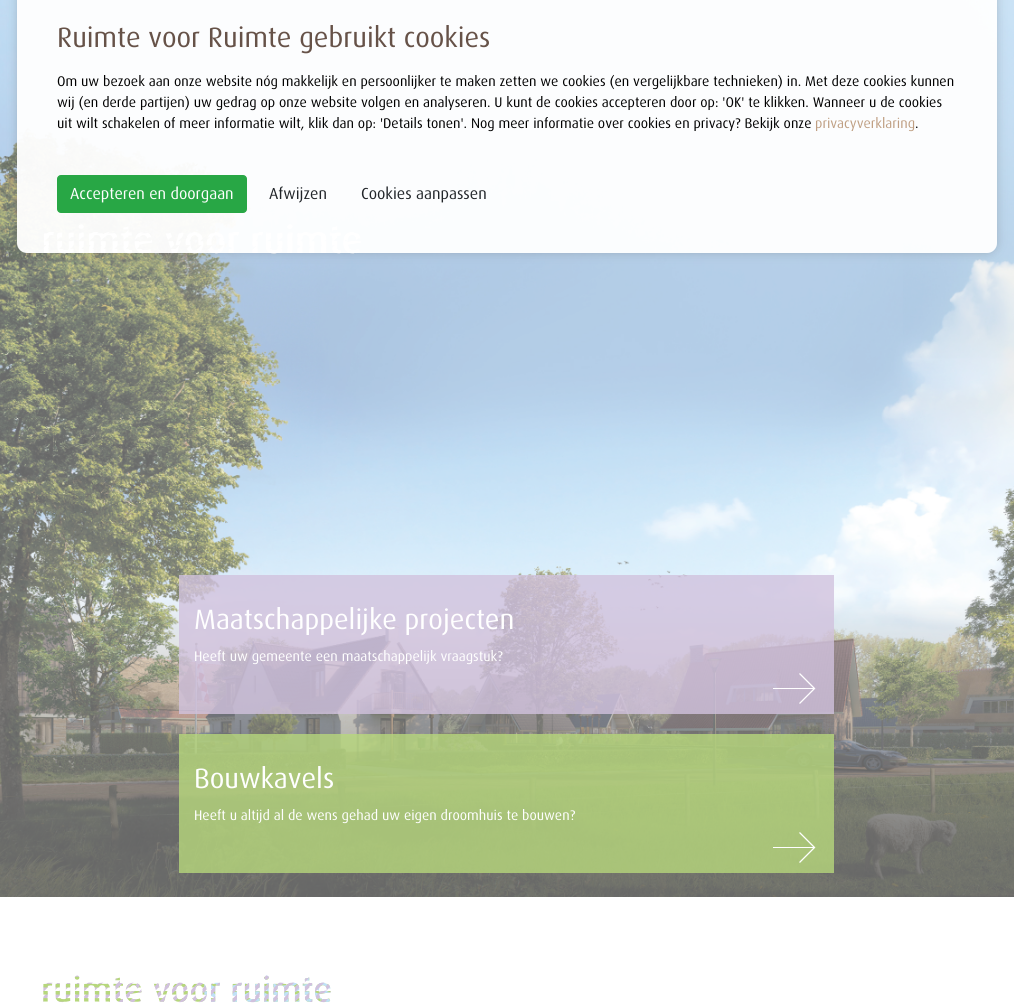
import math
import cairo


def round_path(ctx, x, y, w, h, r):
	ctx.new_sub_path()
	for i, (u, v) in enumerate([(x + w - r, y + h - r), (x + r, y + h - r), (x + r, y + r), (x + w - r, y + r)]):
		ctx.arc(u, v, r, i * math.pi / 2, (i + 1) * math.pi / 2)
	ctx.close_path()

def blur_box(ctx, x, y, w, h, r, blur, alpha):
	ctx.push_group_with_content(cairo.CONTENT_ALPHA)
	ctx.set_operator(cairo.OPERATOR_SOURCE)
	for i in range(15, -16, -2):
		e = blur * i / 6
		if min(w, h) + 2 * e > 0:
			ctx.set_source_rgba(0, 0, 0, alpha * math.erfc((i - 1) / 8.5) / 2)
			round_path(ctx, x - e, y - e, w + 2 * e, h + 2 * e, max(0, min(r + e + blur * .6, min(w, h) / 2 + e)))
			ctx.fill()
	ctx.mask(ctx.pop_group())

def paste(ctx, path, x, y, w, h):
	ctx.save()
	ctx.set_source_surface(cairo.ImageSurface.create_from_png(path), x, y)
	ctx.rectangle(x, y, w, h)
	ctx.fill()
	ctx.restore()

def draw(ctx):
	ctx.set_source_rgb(1, 1, 1)
	ctx.paint()
	paste(ctx, 'media/1.png', 0, 0, 1014, 897)
	paste(ctx, 'media/2.png', 43, 224, 318, 30)
	ctx.save()
	ctx.set_fill_rule(cairo.FILL_RULE_EVEN_ODD)
	ctx.new_path()
	ctx.move_to(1, 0)
	ctx.line_to(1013, 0)
	ctx.line_to(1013, 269)
	ctx.line_to(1, 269)
	ctx.close_path()
	ctx.move_to(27, -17)
	ctx.line_to(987, -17)
	ctx.curve_to(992.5, -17, 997, -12.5, 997, -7)
	ctx.line_to(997, 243)
	ctx.curve_to(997, 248.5, 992.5, 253, 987, 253)
	ctx.line_to(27, 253)
	ctx.curve_to(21.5, 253, 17, 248.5, 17, 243)
	ctx.line_to(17, -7)
	ctx.curve_to(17, -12.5, 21.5, -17, 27, -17)
	ctx.close_path()
	ctx.clip()
	ctx.set_source_rgb(0.4, 0.4, 0.4)
	blur_box(ctx, 17, -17, 980, 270, 10, 5, 0.3)
	ctx.restore()
	ctx.set_source_rgba(1, 1, 1, 0.95)
	round_path(ctx, 17, -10, 980, 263, 10)
	ctx.fill()
	ctx.select_font_face('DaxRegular')
	ctx.set_font_size(28)
	ctx.set_source_rgb(0.4, 0.322, 0.282)
	ctx.move_to(57, 47)
	ctx.show_text('Ruimte voor Ruimte gebruikt cookies')
	ctx.set_font_size(14)
	ctx.set_source_rgb(0, 0, 0)
	for x, y, s in [
		(57, 86, 'Om uw bezoek aan onze website nóg makkelijk en persoonlijker te maken zetten we cookies (en vergelijkbare technieken) in. Met deze cookies kunnen'),
		(57, 107, 'wij (en derde partijen) uw gedrag op onze website volgen en analyseren. U kunt de cookies accepteren door op: \'OK\' te klikken. Wanneer u de cookies'),
		(57, 128, 'uit wilt schakelen of meer informatie wilt, klik dan op: \'Details tonen\'. Nog meer informatie over cookies en privacy? Bekijk onze'),
	]:
		ctx.move_to(x, y)
		ctx.show_text(s)
	ctx.set_source_rgb(0.749, 0.624, 0.514)
	ctx.move_to(815, 128)
	ctx.show_text('privacyverklaring')
	ctx.set_source_rgb(0, 0, 0)
	ctx.move_to(915, 128)
	ctx.show_text('.')
	ctx.set_source_rgb(0.157, 0.655, 0.271)
	round_path(ctx, 57.5, 175.5, 189, 37, 3.5)
	ctx.fill_preserve()
	ctx.set_line_width(1)
	ctx.stroke()
	ctx.set_font_size(16)
	ctx.set_source_rgb(1, 1, 1)
	ctx.move_to(70, 199)
	ctx.show_text('Accepteren en doorgaan')
	ctx.set_source_rgb(0.129, 0.145, 0.161)
	ctx.move_to(269, 199)
	ctx.show_text('Afwijzen')
	ctx.move_to(361, 199)
	ctx.show_text('Cookies aanpassen')
	ctx.set_source_rgba(0.816, 0.757, 0.867, 0.8)
	ctx.rectangle(179, 575, 655, 139)
	ctx.fill()
	ctx.set_font_size(28)
	ctx.set_source_rgb(1, 1, 1)
	ctx.move_to(194, 629)
	ctx.show_text('Maatschappelijke projecten')
	ctx.set_font_size(14)
	ctx.move_to(194, 661)
	ctx.show_text('Heeft uw gemeente een maatschappelijk vraagstuk?')
	ctx.new_path()
	ctx.move_to(799.5, 673.5)
	ctx.line_to(814.5, 688.5)
	ctx.line_to(799.5, 703.5)
	ctx.set_line_width(1.3)
	ctx.stroke()
	ctx.rectangle(773, 688, 42, 1)
	ctx.fill()
	ctx.set_source_rgba(0.714, 0.843, 0.486, 0.8)
	ctx.rectangle(179, 734, 655, 139)
	ctx.fill()
	ctx.set_font_size(28)
	ctx.set_source_rgb(1, 1, 1)
	ctx.move_to(194, 788)
	ctx.show_text('Bouwkavels')
	ctx.set_font_size(14)
	ctx.move_to(194, 820)
	ctx.show_text('Heeft u altijd al de wens gehad uw eigen droomhuis te bouwen?')
	ctx.new_path()
	ctx.move_to(799.5, 832.5)
	ctx.line_to(814.5, 847.5)
	ctx.line_to(799.5, 862.5)
	ctx.stroke()
	ctx.rectangle(773, 847, 42, 1)
	ctx.fill()
	paste(ctx, 'media/3.png', 43, 975, 288, 28)


surface = cairo.ImageSurface(cairo.FORMAT_RGB24, 1014, 1004)
ctx = cairo.Context(surface)
options = cairo.FontOptions()
options.set_hint_metrics(cairo.HINT_METRICS_OFF)
options.set_hint_style(cairo.HINT_STYLE_NONE)
ctx.set_font_options(options)
ctx.set_miter_limit(4)
draw(ctx)
surface.write_to_png('image.png')
